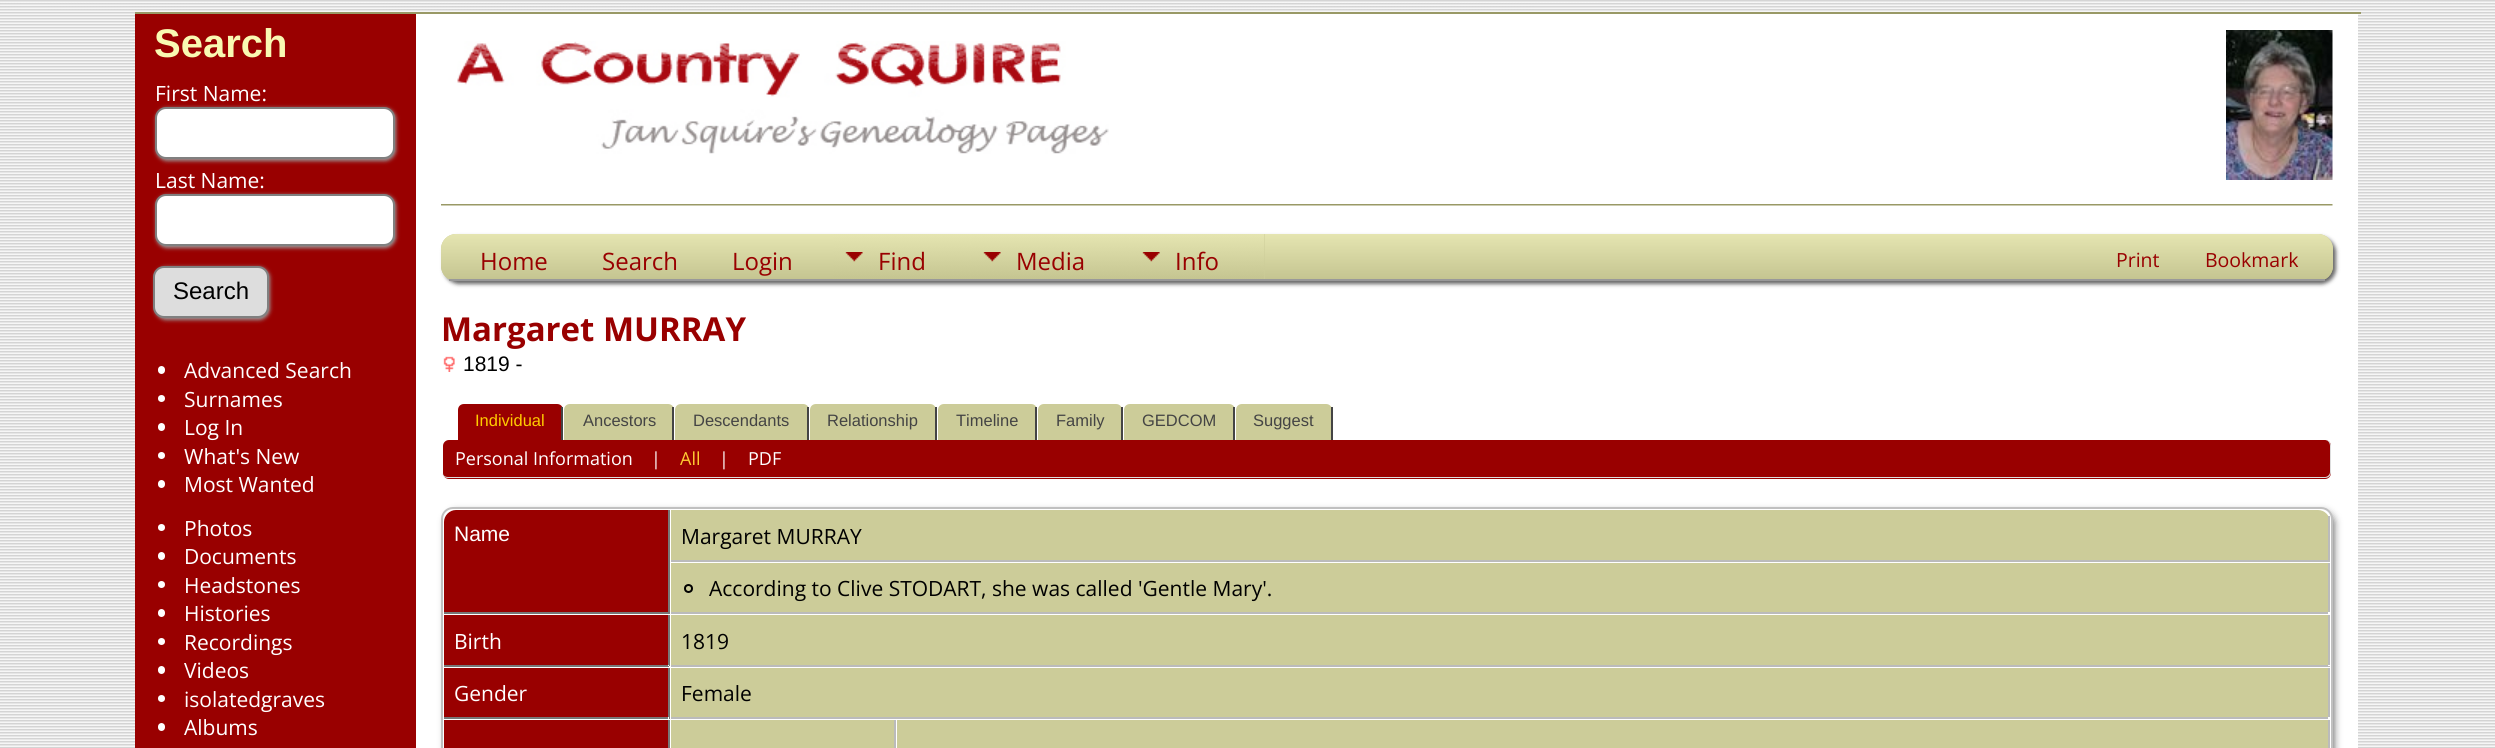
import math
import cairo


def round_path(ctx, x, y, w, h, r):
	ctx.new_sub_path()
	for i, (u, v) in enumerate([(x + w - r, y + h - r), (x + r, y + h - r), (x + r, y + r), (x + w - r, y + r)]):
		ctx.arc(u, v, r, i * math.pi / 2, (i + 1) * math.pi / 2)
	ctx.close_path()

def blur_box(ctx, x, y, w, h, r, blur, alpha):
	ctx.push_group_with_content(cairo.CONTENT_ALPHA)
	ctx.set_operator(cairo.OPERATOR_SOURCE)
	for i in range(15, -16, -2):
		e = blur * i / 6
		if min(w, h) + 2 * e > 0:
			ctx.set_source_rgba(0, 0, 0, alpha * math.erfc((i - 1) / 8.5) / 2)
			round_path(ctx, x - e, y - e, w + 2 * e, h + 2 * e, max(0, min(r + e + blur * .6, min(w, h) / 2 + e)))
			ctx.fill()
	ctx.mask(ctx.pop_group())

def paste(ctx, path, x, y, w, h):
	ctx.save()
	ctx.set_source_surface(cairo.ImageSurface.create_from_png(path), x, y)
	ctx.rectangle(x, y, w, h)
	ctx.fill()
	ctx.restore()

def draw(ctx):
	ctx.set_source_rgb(1, 1, 1)
	ctx.paint()
	paste(ctx, 'media/1.png', 0, 0, 2495, 748)
	ctx.set_source_rgb(0.6, 0.6, 0.4)
	ctx.rectangle(135, 12, 2226, 2)
	ctx.fill()
	ctx.set_source_rgb(0.6, 0, 0)
	ctx.rectangle(135, 14, 281, 734)
	ctx.fill()
	ctx.select_font_face('Liberation Sans', cairo.FONT_SLANT_NORMAL, cairo.FONT_WEIGHT_BOLD)
	ctx.set_font_size(40)
	ctx.set_source_rgb(0.973, 0.973, 0.698)
	ctx.move_to(154, 57)
	ctx.show_text('Search')
	ctx.select_font_face('Open Sans')
	ctx.set_font_size(21)
	ctx.set_source_rgb(1, 1, 1)
	ctx.move_to(155, 101)
	ctx.show_text('First Name:')
	ctx.set_source_rgb(0.6, 0.6, 0.6)
	blur_box(ctx, 156, 108, 240, 53, 11, 2, 1)
	ctx.set_source_rgb(1, 1, 1)
	round_path(ctx, 156, 108, 238, 50, 10)
	ctx.fill_preserve()
	ctx.set_source_rgb(0.502, 0.502, 0.502)
	ctx.stroke()
	ctx.set_source_rgb(1, 1, 1)
	ctx.move_to(155, 188)
	ctx.show_text('Last Name:')
	ctx.set_source_rgb(0.6, 0.6, 0.6)
	blur_box(ctx, 156, 195, 240, 53, 11, 2, 1)
	ctx.set_source_rgb(1, 1, 1)
	round_path(ctx, 156, 195, 238, 50, 10)
	ctx.fill_preserve()
	ctx.set_source_rgb(0.502, 0.502, 0.502)
	ctx.stroke()
	ctx.set_source_rgb(0.6, 0.6, 0.6)
	blur_box(ctx, 155, 267, 115, 53, 11, 2, 1)
	ctx.set_source_rgb(0.867, 0.867, 0.867)
	round_path(ctx, 154, 267, 114, 50, 10)
	ctx.fill_preserve()
	ctx.set_source_rgb(0.502, 0.502, 0.502)
	ctx.stroke()
	ctx.select_font_face('Liberation Sans')
	ctx.set_font_size(24)
	ctx.set_source_rgb(0, 0, 0)
	ctx.move_to(173, 299)
	ctx.show_text('Search')
	ctx.set_source_rgb(1, 1, 1)
	round_path(ctx, 158, 366, 7, 8, 3.5)
	ctx.fill()
	ctx.select_font_face('Open Sans')
	ctx.set_font_size(21)
	ctx.move_to(184, 378)
	ctx.show_text('Advanced Search')
	ctx.new_path()
	ctx.arc(161.5, 398.5, 3.5, 0, 2 * math.pi)
	ctx.fill()
	ctx.move_to(184, 407)
	ctx.show_text('Surnames')
	round_path(ctx, 158, 423, 7, 8, 3.5)
	ctx.fill()
	ctx.move_to(184, 435)
	ctx.show_text('Log In')
	ctx.new_path()
	ctx.arc(161.5, 455.5, 3.5, 0, 2 * math.pi)
	ctx.fill()
	ctx.move_to(184, 464)
	ctx.show_text('What\'s New')
	round_path(ctx, 158, 480, 7, 8, 3.5)
	ctx.fill()
	ctx.move_to(184, 492)
	ctx.show_text('Most Wanted')
	ctx.new_path()
	ctx.arc(161.5, 527.5, 3.5, 0, 2 * math.pi)
	ctx.fill()
	ctx.move_to(184, 536)
	ctx.show_text('Photos')
	round_path(ctx, 158, 552, 7, 8, 3.5)
	ctx.fill()
	ctx.move_to(184, 564)
	ctx.show_text('Documents')
	ctx.new_path()
	ctx.arc(161.5, 584.5, 3.5, 0, 2 * math.pi)
	ctx.fill()
	ctx.move_to(184, 593)
	ctx.show_text('Headstones')
	round_path(ctx, 158, 609, 7, 8, 3.5)
	ctx.fill()
	ctx.move_to(184, 621)
	ctx.show_text('Histories')
	ctx.new_path()
	ctx.arc(161.5, 641.5, 3.5, 0, 2 * math.pi)
	ctx.fill()
	ctx.move_to(184, 650)
	ctx.show_text('Recordings')
	round_path(ctx, 158, 666, 7, 8, 3.5)
	ctx.fill()
	ctx.move_to(184, 678)
	ctx.show_text('Videos')
	ctx.new_path()
	ctx.arc(161.5, 698.5, 3.5, 0, 2 * math.pi)
	ctx.fill()
	ctx.move_to(184, 707)
	ctx.show_text('isolatedgraves')
	round_path(ctx, 158, 723, 7, 8, 3.5)
	ctx.fill()
	ctx.move_to(184, 735)
	ctx.show_text('Albums')
	ctx.rectangle(416, 14, 1942, 734)
	ctx.fill()
	paste(ctx, 'media/2.png', 457, 41, 652, 113)
	paste(ctx, 'media/3.png', 2226, 30, 107, 150)
	paste(ctx, 'media/4.png', 441, 204, 1892, 2)
	ctx.set_source_rgb(0.4, 0.4, 0.4)
	blur_box(ctx, 444, 237, 1892, 47, 15, 2, 1)
	ctx.set_source_rgb(0.8, 0.8, 0.6)
	round_path(ctx, 441, 234, 1892, 47, 15)
	ctx.fill()
	ctx.save()
	round_path(ctx, 441, 234, 1892, 47, 15)
	ctx.clip()
	gradient = cairo.LinearGradient(1387, 234, 1387, 279)
	gradient.add_color_stop_rgba(0, 0.898, 0.898, 0.694, 1)
	gradient.add_color_stop_rgba(1, 0.773, 0.773, 0.569, 1)
	ctx.set_source(gradient)
	ctx.new_path()
	ctx.move_to(456, 234)
	ctx.line_to(2318, 234)
	ctx.curve_to(2326.5, 234, 2333, 240.5, 2333, 249)
	ctx.line_to(2333, 279)
	ctx.line_to(441, 279)
	ctx.line_to(441, 249)
	ctx.curve_to(441, 240.5, 447.5, 234, 456, 234)
	ctx.close_path()
	ctx.fill()
	ctx.restore()
	ctx.set_source_rgb(0.6, 0.6, 0.6)
	ctx.rectangle(449, 279, 1876, 2)
	ctx.fill()
	ctx.set_font_size(24)
	ctx.set_source_rgb(0.6, 0, 0)
	for x, y, s in [
		(480, 270, 'Home'),
		(602, 270, 'Search'),
		(732, 270, 'Login'),
	]:
		ctx.move_to(x, y)
		ctx.show_text(s)
	paste(ctx, 'media/5.png', 833, 234, 138, 45)
	ctx.move_to(878, 270)
	ctx.show_text('Find')
	paste(ctx, 'media/6.png', 970, 234, 160, 45)
	ctx.move_to(1016, 270)
	ctx.show_text('Media')
	ctx.set_source_rgb(0.8, 0.8, 0.6)
	ctx.rectangle(1264, 234, 1, 45)
	ctx.fill()
	paste(ctx, 'media/7.png', 1129, 234, 136, 45)
	ctx.set_source_rgb(0.6, 0, 0)
	ctx.move_to(1175, 270)
	ctx.show_text('Info')
	ctx.set_font_size(19.5)
	ctx.move_to(2116, 267)
	ctx.show_text('Print')
	ctx.move_to(2205, 267)
	ctx.show_text('Bookmark')
	ctx.select_font_face('Open Sans', cairo.FONT_SLANT_NORMAL, cairo.FONT_WEIGHT_BOLD)
	ctx.set_font_size(33)
	ctx.move_to(441, 341)
	ctx.show_text('Margaret MURRAY')
	paste(ctx, 'media/8.png', 443, 356, 12, 16)
	ctx.select_font_face('Liberation Sans')
	ctx.set_font_size(21)
	ctx.set_source_rgb(0, 0, 0)
	ctx.move_to(463, 371)
	ctx.show_text('1819 -')
	ctx.set_source_rgb(0.6, 0, 0)
	ctx.new_path()
	ctx.move_to(464, 404)
	ctx.line_to(557, 404)
	ctx.curve_to(560.5, 404, 563, 406.5, 563, 410)
	ctx.line_to(563, 440)
	ctx.line_to(458, 440)
	ctx.line_to(458, 410)
	ctx.curve_to(458, 406.5, 460.5, 404, 464, 404)
	ctx.close_path()
	ctx.fill()
	ctx.set_source_rgb(0.267, 0.267, 0.267)
	ctx.rectangle(561, 407, 2, 33)
	ctx.fill()
	ctx.set_font_size(16.5)
	ctx.set_source_rgb(1, 0.8, 0)
	ctx.move_to(475, 426)
	ctx.show_text('Individual')
	ctx.set_source_rgb(0.8, 0.8, 0.6)
	ctx.new_path()
	ctx.move_to(570, 404)
	ctx.line_to(668, 404)
	ctx.curve_to(671.5, 404, 674, 406.5, 674, 410)
	ctx.line_to(674, 440)
	ctx.line_to(564, 440)
	ctx.line_to(564, 410)
	ctx.curve_to(564, 406.5, 566.5, 404, 570, 404)
	ctx.close_path()
	ctx.fill()
	ctx.set_source_rgb(0.267, 0.267, 0.267)
	ctx.rectangle(672, 407, 2, 33)
	ctx.fill()
	ctx.move_to(583, 426)
	ctx.show_text('Ancestors')
	ctx.set_source_rgb(0.8, 0.8, 0.6)
	ctx.new_path()
	ctx.move_to(681, 404)
	ctx.line_to(803, 404)
	ctx.curve_to(806.5, 404, 809, 406.5, 809, 410)
	ctx.line_to(809, 440)
	ctx.line_to(675, 440)
	ctx.line_to(675, 410)
	ctx.curve_to(675, 406.5, 677.5, 404, 681, 404)
	ctx.close_path()
	ctx.fill()
	ctx.set_source_rgb(0.267, 0.267, 0.267)
	ctx.rectangle(807, 407, 2, 33)
	ctx.fill()
	ctx.move_to(693, 426)
	ctx.show_text('Descendants')
	ctx.set_source_rgb(0.8, 0.8, 0.6)
	ctx.new_path()
	ctx.move_to(816, 404)
	ctx.line_to(930, 404)
	ctx.curve_to(933.5, 404, 936, 406.5, 936, 410)
	ctx.line_to(936, 440)
	ctx.line_to(810, 440)
	ctx.line_to(810, 410)
	ctx.curve_to(810, 406.5, 812.5, 404, 816, 404)
	ctx.close_path()
	ctx.fill()
	ctx.set_source_rgb(0.267, 0.267, 0.267)
	ctx.rectangle(935, 407, 2, 33)
	ctx.fill()
	ctx.move_to(827, 426)
	ctx.show_text('Relationship')
	ctx.set_source_rgb(0.8, 0.8, 0.6)
	ctx.new_path()
	ctx.move_to(944, 404)
	ctx.line_to(1031, 404)
	ctx.curve_to(1034.5, 404, 1037, 406.5, 1037, 410)
	ctx.line_to(1037, 440)
	ctx.line_to(938, 440)
	ctx.line_to(938, 410)
	ctx.curve_to(938, 406.5, 940.5, 404, 944, 404)
	ctx.close_path()
	ctx.fill()
	ctx.set_source_rgb(0.267, 0.267, 0.267)
	ctx.rectangle(1035, 407, 2, 33)
	ctx.fill()
	ctx.move_to(956, 426)
	ctx.show_text('Timeline')
	ctx.set_source_rgb(0.8, 0.8, 0.6)
	ctx.new_path()
	ctx.move_to(1044, 404)
	ctx.line_to(1116, 404)
	ctx.curve_to(1119.5, 404, 1122, 406.5, 1122, 410)
	ctx.line_to(1122, 440)
	ctx.line_to(1038, 440)
	ctx.line_to(1038, 410)
	ctx.curve_to(1038, 406.5, 1040.5, 404, 1044, 404)
	ctx.close_path()
	ctx.fill()
	ctx.set_source_rgb(0.267, 0.267, 0.267)
	ctx.rectangle(1121, 407, 2, 33)
	ctx.fill()
	ctx.move_to(1056, 426)
	ctx.show_text('Family')
	ctx.set_source_rgb(0.8, 0.8, 0.6)
	ctx.new_path()
	ctx.move_to(1130, 404)
	ctx.line_to(1229, 404)
	ctx.curve_to(1232.5, 404, 1235, 406.5, 1235, 410)
	ctx.line_to(1235, 440)
	ctx.line_to(1124, 440)
	ctx.line_to(1124, 410)
	ctx.curve_to(1124, 406.5, 1126.5, 404, 1130, 404)
	ctx.close_path()
	ctx.fill()
	ctx.set_source_rgb(0.267, 0.267, 0.267)
	ctx.rectangle(1233, 407, 2, 33)
	ctx.fill()
	ctx.move_to(1142, 426)
	ctx.show_text('GEDCOM')
	ctx.set_source_rgb(0.8, 0.8, 0.6)
	ctx.new_path()
	ctx.move_to(1242, 404)
	ctx.line_to(1326, 404)
	ctx.curve_to(1329.5, 404, 1332, 406.5, 1332, 410)
	ctx.line_to(1332, 440)
	ctx.line_to(1236, 440)
	ctx.line_to(1236, 410)
	ctx.curve_to(1236, 406.5, 1238.5, 404, 1242, 404)
	ctx.close_path()
	ctx.fill()
	ctx.set_source_rgb(0.267, 0.267, 0.267)
	ctx.rectangle(1331, 407, 2, 33)
	ctx.fill()
	ctx.move_to(1253, 426)
	ctx.show_text('Suggest')
	ctx.set_source_rgb(0.6, 0, 0)
	round_path(ctx, 443, 440, 1888, 39, 6)
	ctx.fill()
	ctx.set_source_rgb(0.867, 0.867, 0.867)
	ctx.set_fill_rule(cairo.FILL_RULE_EVEN_ODD)
	ctx.new_path()
	ctx.move_to(448, 440)
	ctx.line_to(2325, 440)
	ctx.curve_to(2328, 440, 2331, 442, 2331, 446)
	ctx.line_to(2331, 472)
	ctx.curve_to(2331, 476, 2328, 478, 2325, 478)
	ctx.line_to(448, 478)
	ctx.curve_to(445, 478, 442, 476, 442, 472)
	ctx.line_to(442, 446)
	ctx.curve_to(442, 442, 445, 440, 448, 440)
	ctx.close_path()
	ctx.move_to(448, 440)
	ctx.line_to(2325, 440)
	ctx.curve_to(2327, 440, 2330, 442, 2330, 446)
	ctx.line_to(2330, 472)
	ctx.curve_to(2330, 475, 2327, 477, 2325, 477)
	ctx.line_to(448, 477)
	ctx.curve_to(445, 477, 442, 475, 442, 472)
	ctx.line_to(442, 446)
	ctx.curve_to(442, 442, 445, 440, 448, 440)
	ctx.close_path()
	ctx.fill()
	ctx.select_font_face('Open Sans')
	ctx.set_font_size(18)
	ctx.set_source_rgb(1, 1, 1)
	ctx.move_to(455, 465)
	ctx.show_text('Personal Information')
	ctx.move_to(651, 465)
	ctx.show_text('|')
	ctx.set_source_rgb(1, 0.8, 0.2)
	ctx.move_to(680, 465)
	ctx.show_text('All')
	ctx.set_source_rgb(1, 1, 1)
	ctx.move_to(719, 465)
	ctx.show_text('|')
	ctx.move_to(748, 465)
	ctx.show_text('PDF')
	ctx.set_source_rgb(0.4, 0.4, 0.4)
	blur_box(ctx, 446, 512, 1888, 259, 11, 4, 1)
	ctx.set_source_rgb(1, 1, 1)
	round_path(ctx, 442, 508, 1890, 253, 11)
	ctx.fill_preserve()
	ctx.set_source_rgb(0.753, 0.753, 0.753)
	ctx.stroke()
	ctx.set_source_rgb(0.6, 0, 0)
	ctx.new_path()
	ctx.move_to(456, 510)
	ctx.line_to(669, 510)
	ctx.line_to(669, 614)
	ctx.line_to(444, 614)
	ctx.line_to(444, 522)
	ctx.curve_to(444, 515.5, 449.5, 510, 456, 510)
	ctx.close_path()
	ctx.fill()
	ctx.set_source_rgb(0.467, 0.467, 0.467)
	ctx.rectangle(668, 510, 2, 104)
	ctx.fill()
	ctx.rectangle(444, 612, 225, 2)
	ctx.fill()
	ctx.select_font_face('Liberation Sans')
	ctx.set_font_size(21)
	ctx.set_source_rgb(1, 1, 1)
	ctx.move_to(454, 541)
	ctx.show_text('Name')
	ctx.set_source_rgb(0.8, 0.8, 0.6)
	ctx.new_path()
	ctx.move_to(671, 510)
	ctx.line_to(2318, 510)
	ctx.curve_to(2324.5, 510, 2330, 515.5, 2330, 522)
	ctx.line_to(2330, 561)
	ctx.line_to(671, 561)
	ctx.close_path()
	ctx.fill()
	ctx.set_source_rgb(0.733, 0.733, 0.733)
	ctx.rectangle(2328, 516, 2, 45)
	ctx.fill()
	ctx.rectangle(671, 560, 1659, 2)
	ctx.fill()
	ctx.select_font_face('Open Sans')
	ctx.set_source_rgb(0, 0, 0)
	ctx.move_to(681, 544)
	ctx.show_text('Margaret MURRAY')
	ctx.set_source_rgb(0.8, 0.8, 0.6)
	ctx.rectangle(671, 563, 1657, 49)
	ctx.fill()
	ctx.set_source_rgb(0.733, 0.733, 0.733)
	ctx.rectangle(2328, 563, 2, 51)
	ctx.rectangle(671, 612, 1659, 2)
	ctx.fill()
	ctx.arc(688.5, 588.5, 3.5, 0, 2 * math.pi)
	ctx.set_source_rgb(0, 0, 0)
	ctx.stroke()
	ctx.move_to(709, 596)
	ctx.show_text('According to Clive STODART, she was called \'Gentle Mary\'.')
	ctx.set_source_rgb(0.6, 0, 0)
	ctx.rectangle(444, 615, 224, 50)
	ctx.fill()
	ctx.set_source_rgb(0.467, 0.467, 0.467)
	ctx.rectangle(668, 615, 2, 51)
	ctx.rectangle(444, 665, 225, 2)
	ctx.fill()
	ctx.set_source_rgb(1, 1, 1)
	ctx.move_to(454, 649)
	ctx.show_text('Birth')
	ctx.set_source_rgb(0.8, 0.8, 0.6)
	ctx.rectangle(671, 615, 1657, 50)
	ctx.fill()
	ctx.set_source_rgb(0.733, 0.733, 0.733)
	ctx.rectangle(2328, 615, 2, 51)
	ctx.rectangle(671, 665, 1659, 2)
	ctx.fill()
	ctx.set_source_rgb(0, 0, 0)
	ctx.move_to(681, 649)
	ctx.show_text('1819')
	ctx.set_source_rgb(0.6, 0, 0)
	ctx.rectangle(444, 668, 224, 49)
	ctx.fill()
	ctx.set_source_rgb(0.467, 0.467, 0.467)
	ctx.rectangle(668, 668, 2, 51)
	ctx.rectangle(444, 717, 225, 2)
	ctx.fill()
	ctx.set_source_rgb(1, 1, 1)
	ctx.move_to(454, 701)
	ctx.show_text('Gender')
	ctx.set_source_rgb(0.8, 0.8, 0.6)
	ctx.rectangle(671, 668, 1657, 49)
	ctx.fill()
	ctx.set_source_rgb(0.733, 0.733, 0.733)
	ctx.rectangle(2328, 668, 2, 51)
	ctx.rectangle(671, 717, 1659, 2)
	ctx.fill()
	ctx.set_source_rgb(0, 0, 0)
	ctx.move_to(681, 701)
	ctx.show_text('Female')
	ctx.set_source_rgb(0.6, 0, 0)
	ctx.rectangle(444, 720, 224, 28)
	ctx.fill()
	ctx.set_source_rgb(0.467, 0.467, 0.467)
	ctx.rectangle(668, 720, 2, 28)
	ctx.fill()
	ctx.set_source_rgb(0.8, 0.8, 0.6)
	ctx.rectangle(671, 720, 223, 28)
	ctx.fill()
	ctx.set_source_rgb(0.733, 0.733, 0.733)
	ctx.rectangle(894, 720, 2, 28)
	ctx.fill()
	ctx.set_source_rgb(0.8, 0.8, 0.6)
	ctx.rectangle(897, 720, 1431, 28)
	ctx.fill()
	ctx.set_source_rgb(0.733, 0.733, 0.733)
	ctx.rectangle(2328, 720, 2, 28)
	ctx.fill()


surface = cairo.ImageSurface(cairo.FORMAT_RGB24, 2495, 748)
ctx = cairo.Context(surface)
options = cairo.FontOptions()
options.set_hint_metrics(cairo.HINT_METRICS_OFF)
options.set_hint_style(cairo.HINT_STYLE_NONE)
ctx.set_font_options(options)
ctx.set_miter_limit(4)
draw(ctx)
surface.write_to_png('image.png')
